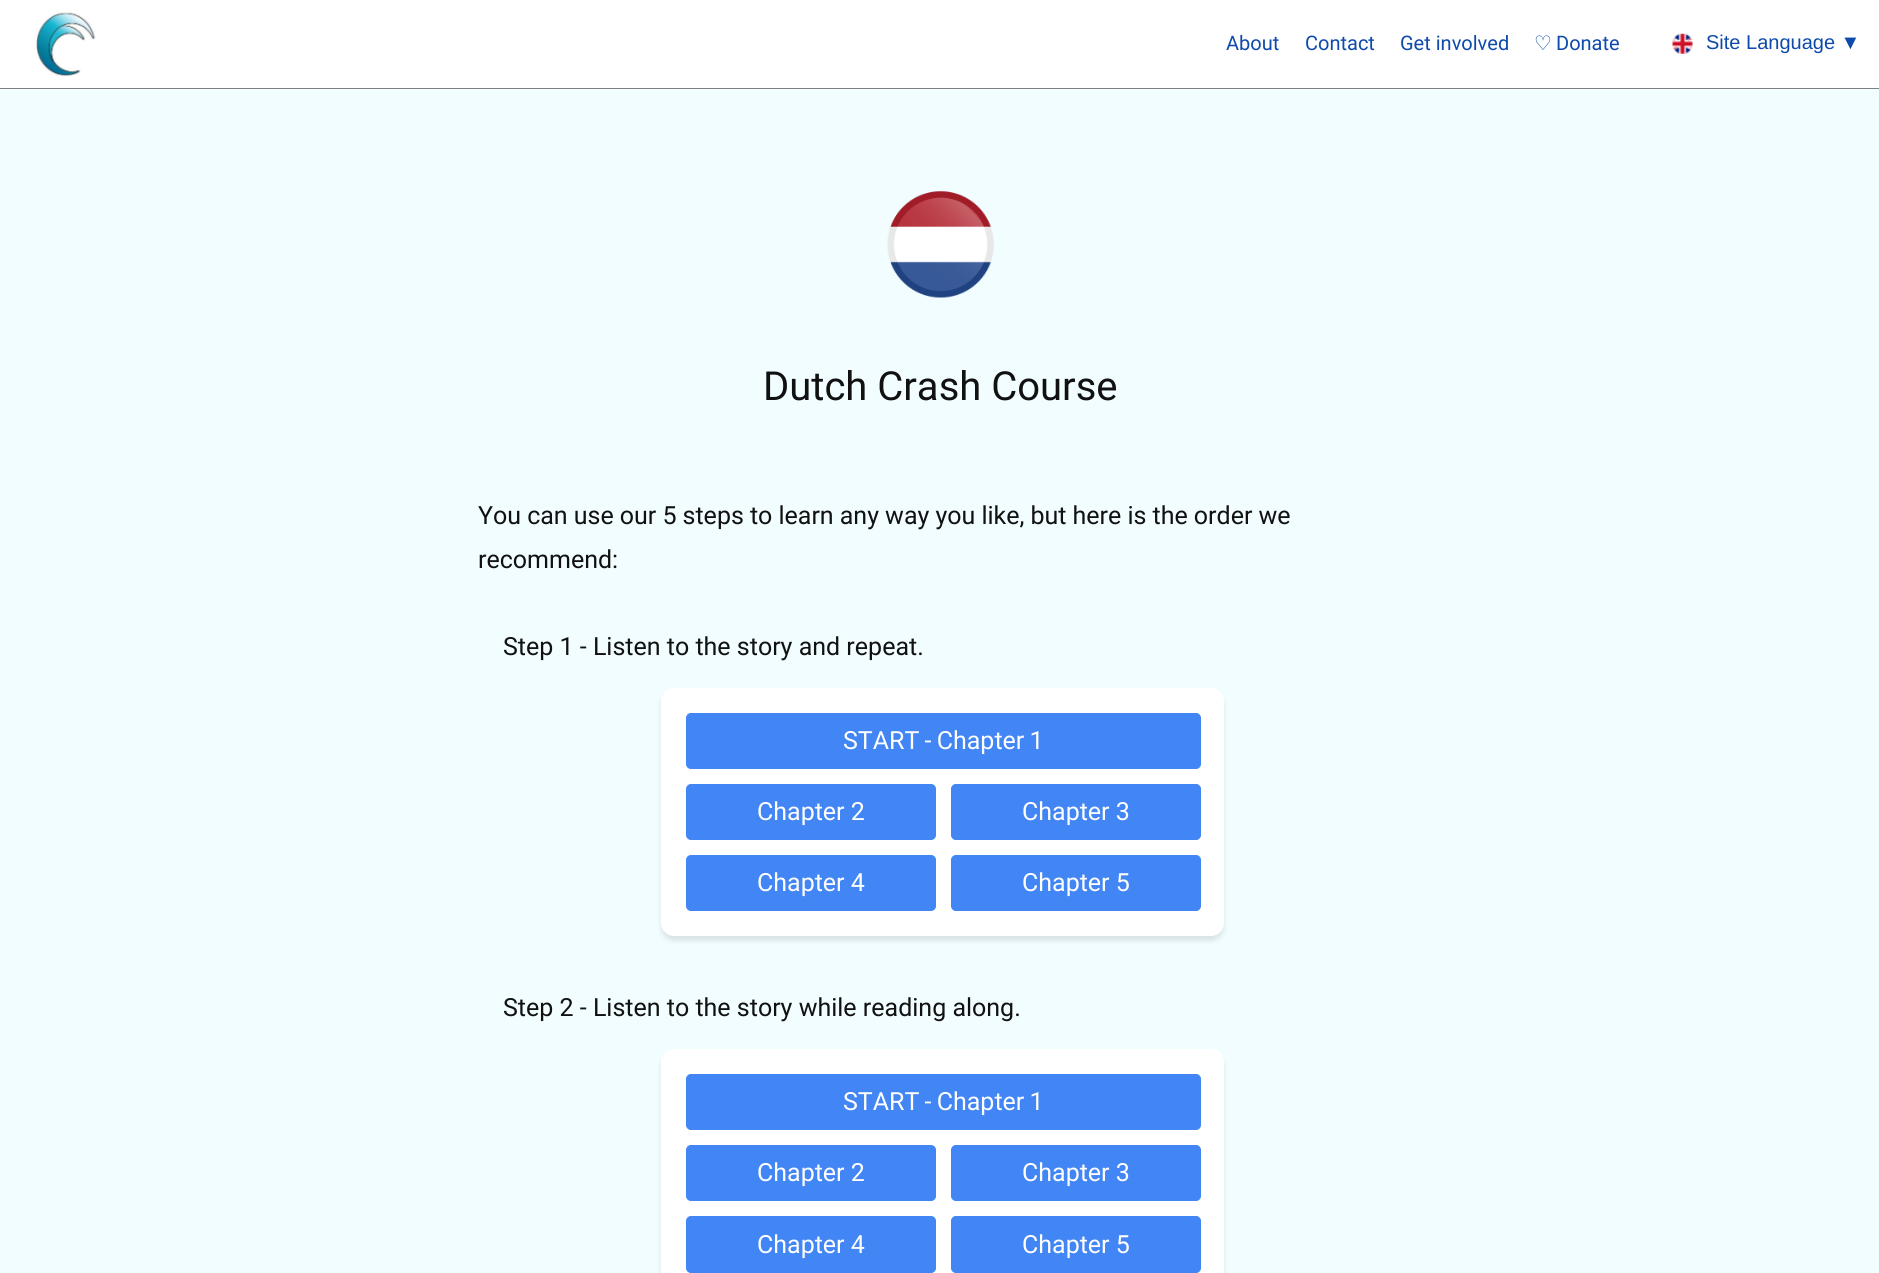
import math
import cairo


def write_spaced(ctx, x, y, s, letter, word):
	ctx.move_to(x, y)
	for ch in s:
		ctx.show_text(ch)
		ctx.rel_move_to(letter + word * (ch == ' '), 0)

def round_path(ctx, x, y, w, h, r):
	ctx.new_sub_path()
	for i, (u, v) in enumerate([(x + w - r, y + h - r), (x + r, y + h - r), (x + r, y + r), (x + w - r, y + r)]):
		ctx.arc(u, v, r, i * math.pi / 2, (i + 1) * math.pi / 2)
	ctx.close_path()

def blur_box(ctx, x, y, w, h, r, blur, alpha):
	ctx.push_group_with_content(cairo.CONTENT_ALPHA)
	ctx.set_operator(cairo.OPERATOR_SOURCE)
	for i in range(15, -16, -2):
		e = blur * i / 6
		if min(w, h) + 2 * e > 0:
			ctx.set_source_rgba(0, 0, 0, alpha * math.erfc((i - 1) / 8.5) / 2)
			round_path(ctx, x - e, y - e, w + 2 * e, h + 2 * e, max(0, min(r + e + blur * .6, min(w, h) / 2 + e)))
			ctx.fill()
	ctx.mask(ctx.pop_group())

def paste(ctx, path, x, y, w, h):
	ctx.save()
	ctx.set_source_surface(cairo.ImageSurface.create_from_png(path), x, y)
	ctx.rectangle(x, y, w, h)
	ctx.fill()
	ctx.restore()

def draw(ctx):
	ctx.set_source_rgb(0.945, 0.992, 1)
	ctx.paint()
	ctx.set_source_rgb(1, 1, 1)
	ctx.rectangle(0, 0, 1879, 88)
	ctx.fill()
	ctx.set_source_rgb(0.502, 0.502, 0.502)
	ctx.rectangle(0, 88, 1879, 1)
	ctx.fill()
	paste(ctx, 'media/1.png', 36, 12, 60, 65)
	ctx.select_font_face('Roboto')
	ctx.set_font_size(20)
	ctx.set_source_rgb(0.051, 0.29, 0.675)
	for x, y, s in [
		(1226, 50, 'About'),
		(1305, 50, 'Contact'),
		(1400, 50, 'Get involved'),
	]:
		ctx.move_to(x, y)
		ctx.show_text(s)
	ctx.select_font_face('DejaVu Sans')
	ctx.move_to(1534, 50)
	ctx.show_text('♡')
	ctx.select_font_face('Roboto')
	ctx.move_to(1556, 50)
	ctx.show_text('Donate')
	paste(ctx, 'media/2.png', 1672, 33, 21, 21)
	ctx.select_font_face('Liberation Sans')
	ctx.move_to(1706, 49)
	ctx.show_text('Site Language ▼')
	paste(ctx, 'media/3.png', 887, 191, 107, 107)
	ctx.select_font_face('Roboto')
	ctx.set_font_size(40)
	ctx.set_source_rgb(0.067, 0.067, 0.067)
	ctx.move_to(763, 400)
	ctx.show_text('Dutch Crash Course')
	ctx.set_font_size(25)
	write_spaced(ctx, 478, 524, 'You can use our 5 steps to learn any way you like, but here is the order we', 0, -0.1)
	ctx.move_to(478, 568)
	ctx.show_text('recommend:')
	ctx.move_to(503, 655)
	ctx.show_text('Step 1 - Listen to the story and repeat.')
	ctx.set_source_rgb(0, 0, 0)
	blur_box(ctx, 661, 693, 563, 248, 13, 2.5, 0.1)
	ctx.set_source_rgb(1, 1, 1)
	round_path(ctx, 661, 688, 563, 248, 13)
	ctx.fill()
	ctx.set_source_rgb(0.259, 0.522, 0.957)
	round_path(ctx, 686.5, 713.5, 514, 55, 4.5)
	ctx.fill_preserve()
	ctx.set_line_width(1)
	ctx.stroke()
	ctx.set_source_rgb(1, 1, 1)
	write_spaced(ctx, 843, 749, 'START - Chapter 1', 0, -1)
	ctx.set_source_rgb(0.259, 0.522, 0.957)
	round_path(ctx, 686.5, 784.5, 249, 55, 4.5)
	ctx.fill_preserve()
	ctx.stroke()
	ctx.set_source_rgb(1, 1, 1)
	ctx.move_to(757, 820)
	ctx.show_text('Chapter 2')
	ctx.set_source_rgb(0.259, 0.522, 0.957)
	round_path(ctx, 951.5, 784.5, 249, 55, 4.5)
	ctx.fill_preserve()
	ctx.stroke()
	ctx.set_source_rgb(1, 1, 1)
	ctx.move_to(1022, 820)
	ctx.show_text('Chapter 3')
	ctx.set_source_rgb(0.259, 0.522, 0.957)
	round_path(ctx, 686.5, 855.5, 249, 55, 4.5)
	ctx.fill_preserve()
	ctx.stroke()
	ctx.set_source_rgb(1, 1, 1)
	ctx.move_to(757, 891)
	ctx.show_text('Chapter 4')
	ctx.set_source_rgb(0.259, 0.522, 0.957)
	round_path(ctx, 951.5, 855.5, 249, 55, 4.5)
	ctx.fill_preserve()
	ctx.stroke()
	ctx.set_source_rgb(1, 1, 1)
	ctx.move_to(1022, 891)
	ctx.show_text('Chapter 5')
	ctx.set_source_rgb(0.067, 0.067, 0.067)
	ctx.move_to(503, 1016)
	ctx.show_text('Step 2 - Listen to the story while reading along.')
	ctx.set_source_rgb(0, 0, 0)
	blur_box(ctx, 661, 1054, 563, 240, 13, 2.5, 0.1)
	ctx.set_source_rgb(1, 1, 1)
	round_path(ctx, 661, 1049, 563, 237, 13)
	ctx.fill()
	ctx.set_source_rgb(0.259, 0.522, 0.957)
	round_path(ctx, 686.5, 1074.5, 514, 55, 4.5)
	ctx.fill_preserve()
	ctx.stroke()
	ctx.set_source_rgb(1, 1, 1)
	write_spaced(ctx, 843, 1110, 'START - Chapter 1', 0, -1)
	ctx.set_source_rgb(0.259, 0.522, 0.957)
	round_path(ctx, 686.5, 1145.5, 249, 55, 4.5)
	ctx.fill_preserve()
	ctx.stroke()
	ctx.set_source_rgb(1, 1, 1)
	ctx.move_to(757, 1181)
	ctx.show_text('Chapter 2')
	ctx.set_source_rgb(0.259, 0.522, 0.957)
	round_path(ctx, 951.5, 1145.5, 249, 55, 4.5)
	ctx.fill_preserve()
	ctx.stroke()
	ctx.set_source_rgb(1, 1, 1)
	ctx.move_to(1022, 1181)
	ctx.show_text('Chapter 3')
	ctx.set_source_rgb(0.259, 0.522, 0.957)
	round_path(ctx, 686.5, 1216.5, 249, 56, 4.5)
	ctx.fill_preserve()
	ctx.stroke()
	ctx.set_source_rgb(1, 1, 1)
	ctx.move_to(757, 1253)
	ctx.show_text('Chapter 4')
	ctx.set_source_rgb(0.259, 0.522, 0.957)
	round_path(ctx, 951.5, 1216.5, 249, 56, 4.5)
	ctx.fill_preserve()
	ctx.stroke()
	ctx.set_source_rgb(1, 1, 1)
	ctx.move_to(1022, 1253)
	ctx.show_text('Chapter 5')


surface = cairo.ImageSurface(cairo.FORMAT_RGB24, 1879, 1273)
ctx = cairo.Context(surface)
options = cairo.FontOptions()
options.set_hint_metrics(cairo.HINT_METRICS_OFF)
options.set_hint_style(cairo.HINT_STYLE_NONE)
ctx.set_font_options(options)
ctx.set_miter_limit(4)
draw(ctx)
surface.write_to_png('image.png')
